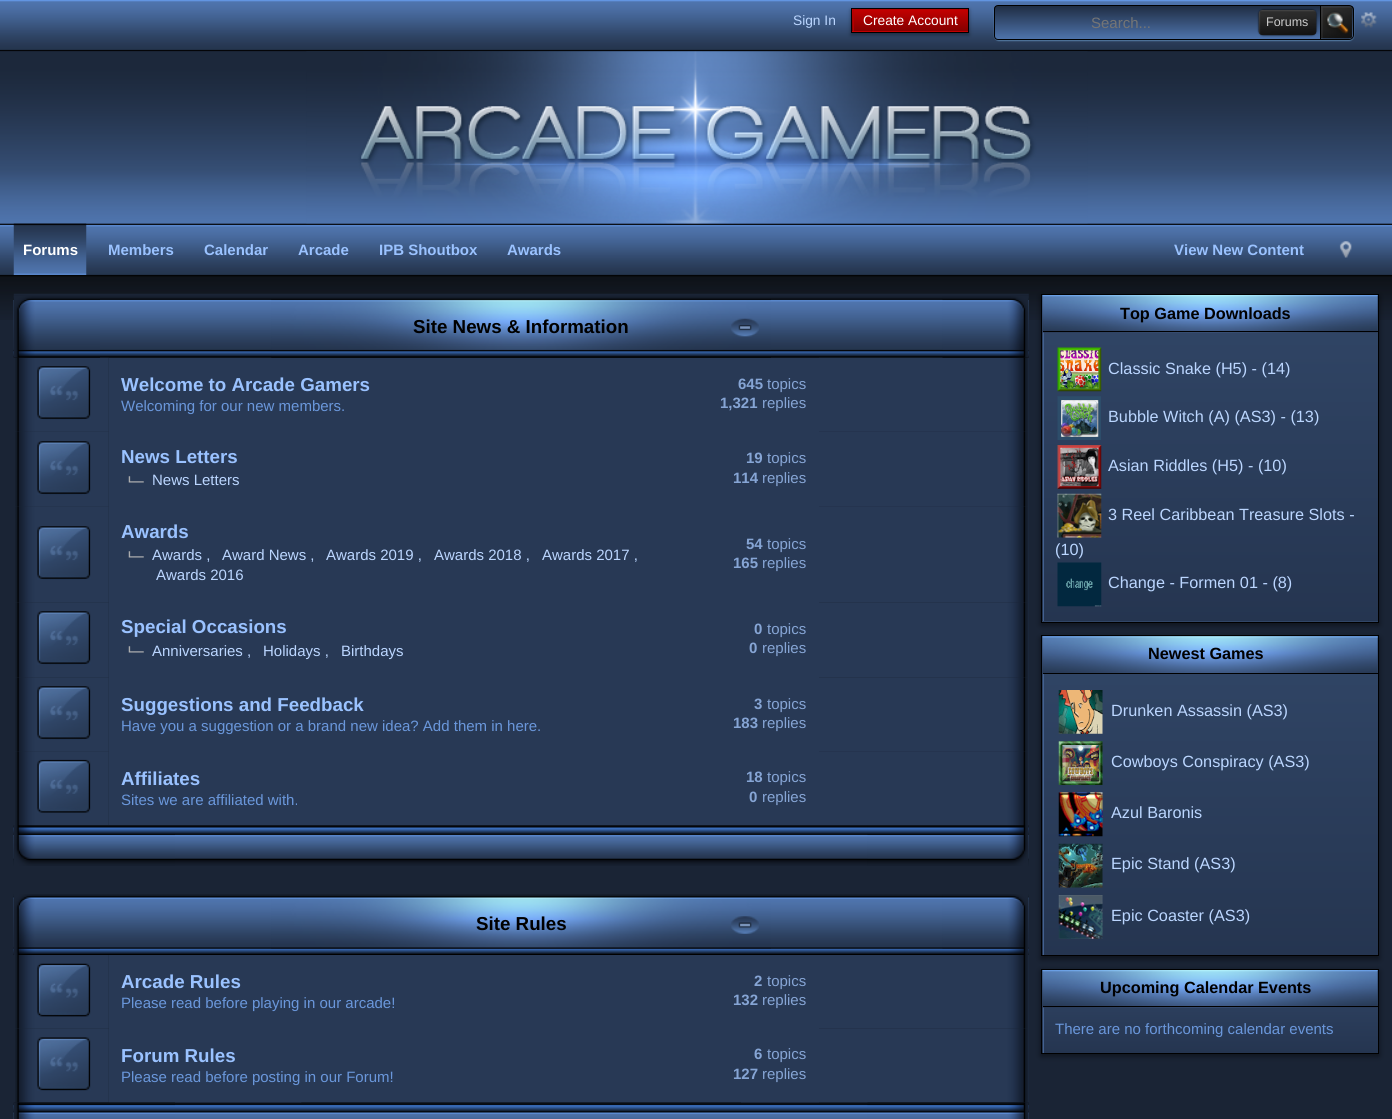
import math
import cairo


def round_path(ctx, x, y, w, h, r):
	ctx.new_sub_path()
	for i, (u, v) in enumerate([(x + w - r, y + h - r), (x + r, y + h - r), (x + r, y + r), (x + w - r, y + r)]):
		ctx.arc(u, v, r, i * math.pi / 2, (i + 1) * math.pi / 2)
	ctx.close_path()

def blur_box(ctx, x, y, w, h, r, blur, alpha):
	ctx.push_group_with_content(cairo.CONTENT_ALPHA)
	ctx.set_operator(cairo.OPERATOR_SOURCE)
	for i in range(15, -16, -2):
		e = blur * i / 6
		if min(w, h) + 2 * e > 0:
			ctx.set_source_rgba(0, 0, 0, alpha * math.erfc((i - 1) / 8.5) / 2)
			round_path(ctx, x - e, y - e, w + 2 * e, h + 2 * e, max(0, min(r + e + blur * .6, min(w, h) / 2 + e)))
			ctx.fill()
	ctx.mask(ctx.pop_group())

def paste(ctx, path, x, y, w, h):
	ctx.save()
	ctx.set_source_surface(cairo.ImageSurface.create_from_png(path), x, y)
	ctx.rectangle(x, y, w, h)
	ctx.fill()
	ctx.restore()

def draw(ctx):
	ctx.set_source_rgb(0.102, 0.141, 0.208)
	ctx.paint()
	paste(ctx, 'media/1.png', 0, 51, 1392, 269)
	paste(ctx, 'media/2.png', 0, 0, 1392, 52)
	ctx.select_font_face('Liberation Sans')
	ctx.set_font_size(13.75)
	ctx.set_source_rgb(0.733, 0.839, 1)
	ctx.move_to(793, 25)
	ctx.show_text('Sign In')
	ctx.set_source_rgb(0, 0, 0)
	blur_box(ctx, 851, 10, 118, 25, 0, 2, 0.4)
	gradient = cairo.LinearGradient(853, 9, 853, 31)
	gradient.add_color_stop_rgba(0, 0.773, 0, 0, 1)
	gradient.add_color_stop_rgba(1, 0.522, 0, 0, 1)
	ctx.set_source(gradient)
	ctx.rectangle(852, 9, 116, 22)
	ctx.fill()
	gradient = cairo.LinearGradient(853, 31, 853, 54)
	gradient.add_color_stop_rgba(0, 0.773, 0, 0, 1)
	gradient.add_color_stop_rgba(1, 0.522, 0, 0, 1)
	ctx.set_source(gradient)
	ctx.rectangle(851, 31, 118, 1)
	ctx.fill()
	ctx.save()
	ctx.rectangle(853, 9, 115, 22)
	ctx.clip()
	ctx.set_source_rgb(0.71, 0, 0)
	ctx.set_fill_rule(cairo.FILL_RULE_EVEN_ODD)
	ctx.new_path()
	ctx.move_to(729, -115)
	ctx.line_to(1091, -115)
	ctx.line_to(1091, 155)
	ctx.line_to(729, 155)
	ctx.close_path()
	ctx.move_to(854, 10)
	ctx.line_to(969, 10)
	ctx.line_to(969, 32)
	ctx.line_to(854, 32)
	ctx.close_path()
	ctx.fill()
	ctx.restore()
	ctx.rectangle(851.5, 8.5, 117, 24)
	ctx.set_source_rgb(0, 0, 0)
	ctx.set_line_width(1)
	ctx.stroke()
	ctx.set_source_rgb(1, 1, 1)
	ctx.move_to(863, 25)
	ctx.show_text('Create Account')
	ctx.set_source_rgb(0.545, 0.804, 1)
	blur_box(ctx, 994, 6, 360, 35, 5, 0.5, 0.4)
	ctx.save()
	ctx.new_path()
	ctx.move_to(998, 5)
	ctx.line_to(1349, 5)
	ctx.curve_to(1352, 5, 1354, 7, 1354, 10)
	ctx.line_to(1354, 35)
	ctx.curve_to(1354, 38, 1352, 40, 1349, 40)
	ctx.line_to(998, 40)
	ctx.curve_to(996, 40, 994, 38, 994, 36)
	ctx.line_to(994, 9)
	ctx.curve_to(994, 7, 996, 5, 998, 5)
	ctx.close_path()
	ctx.clip()
	gradient = cairo.LinearGradient(995, 6.2, 995, 39)
	gradient.add_color_stop_rgba(0, 0.125, 0.18, 0.267, 1)
	gradient.add_color_stop_rgba(1, 0.306, 0.451, 0.671, 1)
	ctx.set_source(gradient)
	ctx.rectangle(994, 6, 360, 33)
	ctx.fill()
	ctx.restore()
	ctx.new_path()
	ctx.move_to(998, 5.5)
	ctx.line_to(1349, 5.5)
	ctx.curve_to(1351.5, 5.5, 1353.5, 7.5, 1353.5, 10)
	ctx.line_to(1353.5, 35)
	ctx.curve_to(1353.5, 37.5, 1351.5, 39.5, 1349, 39.5)
	ctx.line_to(998, 39.5)
	ctx.curve_to(996, 39.5, 994.5, 38, 994.5, 36)
	ctx.line_to(994.5, 9)
	ctx.curve_to(994.5, 7, 996, 5.5, 998, 5.5)
	ctx.close_path()
	ctx.set_source_rgb(0, 0, 0)
	ctx.stroke()
	ctx.set_font_size(15)
	ctx.set_source_rgb(0.459, 0.459, 0.459)
	ctx.move_to(1091, 28)
	ctx.show_text('Search...')
	ctx.set_source_rgb(0, 0, 0)
	blur_box(ctx, 1259, 10, 57, 25, 4, 1, 1)
	paste(ctx, 'media/3.png', 1258, 10, 59, 25)
	ctx.set_font_size(12.5)
	ctx.set_source_rgb(0.8, 0.8, 0.8)
	ctx.move_to(1266, 26)
	ctx.show_text('Forums')
	paste(ctx, 'media/4.png', 1321, 6, 32, 33)
	ctx.set_source_rgb(0, 0, 0)
	ctx.rectangle(1320, 6, 1, 33)
	ctx.fill()
	paste(ctx, 'media/5.png', 1361, 12, 16, 16)
	paste(ctx, 'media/6.png', 0, 51, 1392, 173)
	paste(ctx, 'media/7.png', 306, 51, 782, 173)
	paste(ctx, 'media/8.png', 0, 223, 1392, 52)
	paste(ctx, 'media/9.png', 13, 223, 74, 52)
	ctx.select_font_face('Liberation Sans', cairo.FONT_SLANT_NORMAL, cairo.FONT_WEIGHT_BOLD)
	ctx.set_font_size(15)
	ctx.set_source_rgb(1, 1, 1)
	ctx.move_to(23, 255)
	ctx.show_text('Forums')
	ctx.set_source_rgb(0.604, 0.761, 1)
	for x, y, s in [
		(108, 255, 'Members'),
		(204, 255, 'Calendar'),
		(298, 255, 'Arcade'),
		(379, 255, 'IPB Shoutbox'),
		(507, 255, 'Awards'),
		(1174, 255, 'View New Content'),
	]:
		ctx.move_to(x, y)
		ctx.show_text(s)
	paste(ctx, 'media/10.png', 1339, 241, 13, 17)
	paste(ctx, 'media/16.png', 15, 357, 94, 75)
	paste(ctx, 'media/18.png', 819, 357, 210, 75)
	paste(ctx, 'media/11.png', 13, 293, 1016, 65)
	paste(ctx, 'media/12.png', 13, 296, 87, 62)
	paste(ctx, 'media/13.png', 942, 296, 87, 62)
	paste(ctx, 'media/14.png', 271, 299, 500, 59)
	ctx.set_font_size(18.75)
	ctx.set_source_rgb(0, 0, 0)
	ctx.move_to(413, 333)
	ctx.show_text('Site News & Information')
	paste(ctx, 'media/15.png', 731, 318, 28, 19)
	paste(ctx, 'media/17.png', 37, 366, 54, 54)
	ctx.set_source_rgb(0.157, 0.224, 0.333)
	ctx.rectangle(109, 358, 710, 73)
	ctx.fill()
	ctx.set_source_rgb(0.604, 0.761, 1)
	ctx.move_to(121, 391)
	ctx.show_text('Welcome to Arcade Gamers')
	ctx.select_font_face('Liberation Sans')
	ctx.set_font_size(15)
	ctx.set_source_rgb(0.416, 0.592, 0.859)
	ctx.move_to(121, 411)
	ctx.show_text('Welcoming for our new members.')
	ctx.select_font_face('Liberation Sans', cairo.FONT_SLANT_NORMAL, cairo.FONT_WEIGHT_BOLD)
	ctx.set_source_rgb(0.525, 0.647, 0.835)
	ctx.move_to(738, 389)
	ctx.show_text('645')
	ctx.select_font_face('Liberation Sans')
	ctx.move_to(767, 389)
	ctx.show_text('topics')
	ctx.select_font_face('Liberation Sans', cairo.FONT_SLANT_NORMAL, cairo.FONT_WEIGHT_BOLD)
	ctx.move_to(720, 408)
	ctx.show_text('1,321')
	ctx.select_font_face('Liberation Sans')
	ctx.move_to(762, 408)
	ctx.show_text('replies')
	paste(ctx, 'media/19.png', 15, 431, 94, 76)
	paste(ctx, 'media/17.png', 37, 441, 54, 54)
	ctx.set_source_rgb(0.157, 0.224, 0.333)
	ctx.rectangle(109, 431, 710, 75)
	ctx.fill()
	ctx.select_font_face('Liberation Sans', cairo.FONT_SLANT_NORMAL, cairo.FONT_WEIGHT_BOLD)
	ctx.set_font_size(18.75)
	ctx.set_source_rgb(0.604, 0.761, 1)
	ctx.move_to(121, 463)
	ctx.show_text('News Letters')
	paste(ctx, 'media/20.png', 128, 476, 16, 7)
	ctx.select_font_face('Liberation Sans')
	ctx.set_font_size(15)
	ctx.set_source_rgb(0.733, 0.839, 1)
	ctx.move_to(152, 485)
	ctx.show_text('News Letters')
	ctx.select_font_face('Liberation Sans', cairo.FONT_SLANT_NORMAL, cairo.FONT_WEIGHT_BOLD)
	ctx.set_source_rgb(0.525, 0.647, 0.835)
	ctx.move_to(746, 463)
	ctx.show_text('19')
	ctx.select_font_face('Liberation Sans')
	ctx.move_to(767, 463)
	ctx.show_text('topics')
	ctx.select_font_face('Liberation Sans', cairo.FONT_SLANT_NORMAL, cairo.FONT_WEIGHT_BOLD)
	ctx.move_to(733, 483)
	ctx.show_text('114')
	ctx.select_font_face('Liberation Sans')
	ctx.move_to(762, 483)
	ctx.show_text('replies')
	paste(ctx, 'media/21.png', 819, 431, 210, 76)
	paste(ctx, 'media/22.png', 15, 506, 94, 97)
	paste(ctx, 'media/17.png', 37, 526, 54, 54)
	ctx.set_source_rgb(0.157, 0.224, 0.333)
	ctx.rectangle(109, 506, 710, 97)
	ctx.fill()
	ctx.select_font_face('Liberation Sans', cairo.FONT_SLANT_NORMAL, cairo.FONT_WEIGHT_BOLD)
	ctx.set_font_size(18.75)
	ctx.set_source_rgb(0.604, 0.761, 1)
	ctx.move_to(121, 538)
	ctx.show_text('Awards')
	paste(ctx, 'media/20.png', 128, 551, 16, 7)
	ctx.select_font_face('Liberation Sans')
	ctx.set_font_size(15)
	ctx.set_source_rgb(0.733, 0.839, 1)
	for x, y, s in [
		(152, 560, 'Awards ,'),
		(222, 560, 'Award News ,'),
		(326, 560, 'Awards 2019 ,'),
		(434, 560, 'Awards 2018 ,'),
		(542, 560, 'Awards 2017 ,'),
		(156, 580, 'Awards 2016'),
	]:
		ctx.move_to(x, y)
		ctx.show_text(s)
	ctx.select_font_face('Liberation Sans', cairo.FONT_SLANT_NORMAL, cairo.FONT_WEIGHT_BOLD)
	ctx.set_source_rgb(0.525, 0.647, 0.835)
	ctx.move_to(746, 549)
	ctx.show_text('54')
	ctx.select_font_face('Liberation Sans')
	ctx.move_to(767, 549)
	ctx.show_text('topics')
	ctx.select_font_face('Liberation Sans', cairo.FONT_SLANT_NORMAL, cairo.FONT_WEIGHT_BOLD)
	ctx.move_to(733, 568)
	ctx.show_text('165')
	ctx.select_font_face('Liberation Sans')
	ctx.move_to(762, 568)
	ctx.show_text('replies')
	paste(ctx, 'media/23.png', 819, 506, 210, 97)
	paste(ctx, 'media/24.png', 15, 602, 94, 76)
	paste(ctx, 'media/17.png', 37, 611, 54, 54)
	ctx.set_source_rgb(0.157, 0.224, 0.333)
	ctx.rectangle(109, 603, 710, 75)
	ctx.fill()
	ctx.select_font_face('Liberation Sans', cairo.FONT_SLANT_NORMAL, cairo.FONT_WEIGHT_BOLD)
	ctx.set_font_size(18.75)
	ctx.set_source_rgb(0.604, 0.761, 1)
	ctx.move_to(121, 633)
	ctx.show_text('Special Occasions')
	paste(ctx, 'media/20.png', 128, 646, 16, 7)
	ctx.select_font_face('Liberation Sans')
	ctx.set_font_size(15)
	ctx.set_source_rgb(0.733, 0.839, 1)
	for x, y, s in [
		(152, 656, 'Anniversaries ,'),
		(263, 656, 'Holidays ,'),
		(341, 656, 'Birthdays'),
	]:
		ctx.move_to(x, y)
		ctx.show_text(s)
	ctx.select_font_face('Liberation Sans', cairo.FONT_SLANT_NORMAL, cairo.FONT_WEIGHT_BOLD)
	ctx.set_source_rgb(0.525, 0.647, 0.835)
	ctx.move_to(754, 634)
	ctx.show_text('0')
	ctx.select_font_face('Liberation Sans')
	ctx.move_to(767, 634)
	ctx.show_text('topics')
	ctx.select_font_face('Liberation Sans', cairo.FONT_SLANT_NORMAL, cairo.FONT_WEIGHT_BOLD)
	ctx.move_to(749, 653)
	ctx.show_text('0')
	ctx.select_font_face('Liberation Sans')
	ctx.move_to(762, 653)
	ctx.show_text('replies')
	paste(ctx, 'media/25.png', 819, 602, 210, 76)
	paste(ctx, 'media/26.png', 15, 677, 94, 75)
	paste(ctx, 'media/17.png', 37, 686, 54, 54)
	ctx.set_source_rgb(0.157, 0.224, 0.333)
	ctx.rectangle(109, 678, 710, 73)
	ctx.fill()
	ctx.select_font_face('Liberation Sans', cairo.FONT_SLANT_NORMAL, cairo.FONT_WEIGHT_BOLD)
	ctx.set_font_size(18.75)
	ctx.set_source_rgb(0.604, 0.761, 1)
	ctx.move_to(121, 711)
	ctx.show_text('Suggestions and Feedback')
	ctx.select_font_face('Liberation Sans')
	ctx.set_font_size(15)
	ctx.set_source_rgb(0.416, 0.592, 0.859)
	ctx.move_to(121, 731)
	ctx.show_text('Have you a suggestion or a brand new idea? Add them in here.')
	ctx.select_font_face('Liberation Sans', cairo.FONT_SLANT_NORMAL, cairo.FONT_WEIGHT_BOLD)
	ctx.set_source_rgb(0.525, 0.647, 0.835)
	ctx.move_to(754, 709)
	ctx.show_text('3')
	ctx.select_font_face('Liberation Sans')
	ctx.move_to(767, 709)
	ctx.show_text('topics')
	ctx.select_font_face('Liberation Sans', cairo.FONT_SLANT_NORMAL, cairo.FONT_WEIGHT_BOLD)
	ctx.move_to(733, 728)
	ctx.show_text('183')
	ctx.select_font_face('Liberation Sans')
	ctx.move_to(762, 728)
	ctx.show_text('replies')
	paste(ctx, 'media/27.png', 819, 677, 210, 75)
	paste(ctx, 'media/28.png', 15, 751, 94, 74)
	paste(ctx, 'media/29.png', 37, 759, 54, 54)
	ctx.set_source_rgb(0.157, 0.224, 0.333)
	ctx.rectangle(109, 751, 710, 74)
	ctx.fill()
	ctx.select_font_face('Liberation Sans', cairo.FONT_SLANT_NORMAL, cairo.FONT_WEIGHT_BOLD)
	ctx.set_font_size(18.75)
	ctx.set_source_rgb(0.604, 0.761, 1)
	ctx.move_to(121, 785)
	ctx.show_text('Affiliates')
	ctx.select_font_face('Liberation Sans')
	ctx.set_font_size(15)
	ctx.set_source_rgb(0.416, 0.592, 0.859)
	ctx.move_to(121, 805)
	ctx.show_text('Sites we are affiliated with.')
	ctx.select_font_face('Liberation Sans', cairo.FONT_SLANT_NORMAL, cairo.FONT_WEIGHT_BOLD)
	ctx.set_source_rgb(0.525, 0.647, 0.835)
	ctx.move_to(746, 782)
	ctx.show_text('18')
	ctx.select_font_face('Liberation Sans')
	ctx.move_to(767, 782)
	ctx.show_text('topics')
	ctx.select_font_face('Liberation Sans', cairo.FONT_SLANT_NORMAL, cairo.FONT_WEIGHT_BOLD)
	ctx.move_to(749, 802)
	ctx.show_text('0')
	ctx.select_font_face('Liberation Sans')
	ctx.move_to(762, 802)
	ctx.show_text('replies')
	paste(ctx, 'media/30.png', 819, 751, 210, 74)
	paste(ctx, 'media/31.png', 13, 825, 1016, 41)
	paste(ctx, 'media/32.png', 13, 825, 162, 41)
	paste(ctx, 'media/33.png', 867, 825, 162, 41)
	paste(ctx, 'media/34.png', 13, 894, 1016, 61)
	paste(ctx, 'media/35.png', 13, 894, 87, 61)
	paste(ctx, 'media/36.png', 942, 894, 87, 61)
	paste(ctx, 'media/37.png', 271, 897, 500, 52)
	ctx.select_font_face('Liberation Sans', cairo.FONT_SLANT_NORMAL, cairo.FONT_WEIGHT_BOLD)
	ctx.set_font_size(18.75)
	ctx.set_source_rgb(0, 0, 0)
	ctx.move_to(476, 930)
	ctx.show_text('Site Rules')
	paste(ctx, 'media/38.png', 731, 916, 28, 18)
	paste(ctx, 'media/39.png', 15, 955, 94, 74)
	paste(ctx, 'media/40.png', 37, 963, 54, 54)
	ctx.set_source_rgb(0.157, 0.224, 0.333)
	ctx.rectangle(109, 955, 710, 74)
	ctx.fill()
	ctx.set_source_rgb(0.604, 0.761, 1)
	ctx.move_to(121, 988)
	ctx.show_text('Arcade Rules')
	ctx.select_font_face('Liberation Sans')
	ctx.set_font_size(15)
	ctx.set_source_rgb(0.416, 0.592, 0.859)
	ctx.move_to(121, 1008)
	ctx.show_text('Please read before playing in our arcade!')
	ctx.select_font_face('Liberation Sans', cairo.FONT_SLANT_NORMAL, cairo.FONT_WEIGHT_BOLD)
	ctx.set_source_rgb(0.525, 0.647, 0.835)
	ctx.move_to(754, 986)
	ctx.show_text('2')
	ctx.select_font_face('Liberation Sans')
	ctx.move_to(767, 986)
	ctx.show_text('topics')
	ctx.select_font_face('Liberation Sans', cairo.FONT_SLANT_NORMAL, cairo.FONT_WEIGHT_BOLD)
	ctx.move_to(733, 1005)
	ctx.show_text('132')
	ctx.select_font_face('Liberation Sans')
	ctx.move_to(762, 1005)
	ctx.show_text('replies')
	paste(ctx, 'media/41.png', 819, 955, 210, 74)
	paste(ctx, 'media/42.png', 15, 1029, 94, 74)
	paste(ctx, 'media/43.png', 37, 1037, 54, 54)
	ctx.set_source_rgb(0.157, 0.224, 0.333)
	ctx.rectangle(109, 1029, 710, 74)
	ctx.fill()
	ctx.select_font_face('Liberation Sans', cairo.FONT_SLANT_NORMAL, cairo.FONT_WEIGHT_BOLD)
	ctx.set_font_size(18.75)
	ctx.set_source_rgb(0.604, 0.761, 1)
	ctx.move_to(121, 1062)
	ctx.show_text('Forum Rules')
	ctx.select_font_face('Liberation Sans')
	ctx.set_font_size(15)
	ctx.set_source_rgb(0.416, 0.592, 0.859)
	ctx.move_to(121, 1082)
	ctx.show_text('Please read before posting in our Forum!')
	ctx.select_font_face('Liberation Sans', cairo.FONT_SLANT_NORMAL, cairo.FONT_WEIGHT_BOLD)
	ctx.set_source_rgb(0.525, 0.647, 0.835)
	ctx.move_to(754, 1059)
	ctx.show_text('6')
	ctx.select_font_face('Liberation Sans')
	ctx.move_to(767, 1059)
	ctx.show_text('topics')
	ctx.select_font_face('Liberation Sans', cairo.FONT_SLANT_NORMAL, cairo.FONT_WEIGHT_BOLD)
	ctx.move_to(733, 1079)
	ctx.show_text('127')
	ctx.select_font_face('Liberation Sans')
	ctx.move_to(762, 1079)
	ctx.show_text('replies')
	paste(ctx, 'media/44.png', 819, 1029, 210, 74)
	paste(ctx, 'media/45.png', 13, 1102, 1016, 17)
	paste(ctx, 'media/46.png', 13, 1102, 162, 17)
	paste(ctx, 'media/47.png', 867, 1102, 162, 17)
	paste(ctx, 'media/48.png', 301, 1102, 440, 1)
	ctx.set_source_rgb(0, 0, 0)
	blur_box(ctx, 1041, 296, 338, 329, 0, 3, 0.5)
	gradient = cairo.LinearGradient(1043, 295, 1043, 621)
	gradient.add_color_stop_rgba(0, 0.192, 0.275, 0.404, 1)
	gradient.add_color_stop_rgba(1, 0.145, 0.208, 0.314, 1)
	ctx.set_source(gradient)
	ctx.rectangle(1042, 295, 336, 326)
	ctx.fill()
	gradient = cairo.LinearGradient(1043, 621, 1043, 948)
	gradient.add_color_stop_rgba(0, 0.192, 0.275, 0.404, 1)
	gradient.add_color_stop_rgba(1, 0.145, 0.208, 0.314, 1)
	ctx.set_source(gradient)
	ctx.rectangle(1041, 621, 338, 1)
	ctx.fill()
	ctx.save()
	ctx.rectangle(1043, 295, 335, 326)
	ctx.clip()
	ctx.set_source_rgb(0.263, 0.38, 0.565)
	ctx.set_fill_rule(cairo.FILL_RULE_EVEN_ODD)
	ctx.new_path()
	ctx.move_to(919, 171)
	ctx.line_to(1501, 171)
	ctx.line_to(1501, 745)
	ctx.line_to(919, 745)
	ctx.close_path()
	ctx.move_to(1044, 296)
	ctx.line_to(1379, 296)
	ctx.line_to(1379, 622)
	ctx.line_to(1044, 622)
	ctx.close_path()
	ctx.fill()
	ctx.restore()
	ctx.rectangle(1041.5, 294.5, 337, 328)
	ctx.set_source_rgb(0, 0, 0)
	ctx.stroke()
	paste(ctx, 'media/49.png', 1042, 295, 336, 38)
	ctx.rectangle(1043, 331, 335, 1)
	ctx.fill()
	ctx.select_font_face('Liberation Sans', cairo.FONT_SLANT_NORMAL, cairo.FONT_WEIGHT_BOLD)
	ctx.set_font_size(16.25)
	ctx.move_to(1120, 319)
	ctx.show_text('Top Game Downloads')
	paste(ctx, 'media/50.png', 1057, 347, 45, 45)
	ctx.select_font_face('Liberation Sans')
	ctx.set_source_rgb(0.733, 0.839, 1)
	ctx.move_to(1108, 374)
	ctx.show_text('Classic Snake (H5) - (14)')
	paste(ctx, 'media/51.png', 1057, 396, 44, 44)
	ctx.move_to(1108, 422)
	ctx.show_text('Bubble Witch (A) (AS3) - (13)')
	paste(ctx, 'media/52.png', 1057, 445, 45, 44)
	ctx.move_to(1108, 471)
	ctx.show_text('Asian Riddles (H5) - (10)')
	paste(ctx, 'media/53.png', 1057, 493, 45, 45)
	ctx.move_to(1108, 520)
	ctx.show_text('3 Reel Caribbean Treasure Slots -')
	ctx.move_to(1055, 555)
	ctx.show_text('(10)')
	paste(ctx, 'media/54.png', 1057, 562, 45, 45)
	ctx.move_to(1108, 588)
	ctx.show_text('Change - Formen 01 - (8)')
	ctx.set_source_rgb(0, 0, 0)
	blur_box(ctx, 1041, 638, 338, 321, 0, 3, 0.5)
	gradient = cairo.LinearGradient(1043, 636, 1043, 955)
	gradient.add_color_stop_rgba(0, 0.192, 0.275, 0.404, 1)
	gradient.add_color_stop_rgba(1, 0.145, 0.208, 0.314, 1)
	ctx.set_source(gradient)
	ctx.rectangle(1042, 636, 336, 319)
	ctx.fill()
	ctx.save()
	ctx.rectangle(1043, 636, 335, 319)
	ctx.clip()
	ctx.set_source_rgb(0.263, 0.38, 0.565)
	ctx.set_fill_rule(cairo.FILL_RULE_EVEN_ODD)
	ctx.new_path()
	ctx.move_to(919, 512)
	ctx.line_to(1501, 512)
	ctx.line_to(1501, 1079)
	ctx.line_to(919, 1079)
	ctx.close_path()
	ctx.move_to(1044, 638)
	ctx.line_to(1379, 638)
	ctx.line_to(1379, 956)
	ctx.line_to(1044, 956)
	ctx.close_path()
	ctx.fill()
	ctx.restore()
	ctx.rectangle(1041.5, 635.5, 337, 320)
	ctx.set_source_rgb(0, 0, 0)
	ctx.stroke()
	paste(ctx, 'media/55.png', 1042, 636, 336, 38)
	ctx.rectangle(1043, 673, 335, 1)
	ctx.fill()
	ctx.select_font_face('Liberation Sans', cairo.FONT_SLANT_NORMAL, cairo.FONT_WEIGHT_BOLD)
	ctx.move_to(1148, 659)
	ctx.show_text('Newest Games')
	paste(ctx, 'media/56.png', 1058, 690, 45, 44)
	ctx.select_font_face('Liberation Sans')
	ctx.set_source_rgb(0.733, 0.839, 1)
	ctx.move_to(1111, 716)
	ctx.show_text('Drunken Assassin (AS3)')
	paste(ctx, 'media/57.png', 1058, 741, 45, 44)
	ctx.move_to(1111, 767)
	ctx.show_text('Cowboys Conspiracy (AS3)')
	paste(ctx, 'media/58.png', 1058, 792, 45, 45)
	ctx.move_to(1111, 818)
	ctx.show_text('Azul Baronis')
	paste(ctx, 'media/59.png', 1058, 843, 45, 45)
	ctx.move_to(1111, 869)
	ctx.show_text('Epic Stand (AS3)')
	paste(ctx, 'media/60.png', 1058, 895, 45, 44)
	ctx.move_to(1111, 921)
	ctx.show_text('Epic Coaster (AS3)')
	ctx.set_source_rgb(0, 0, 0)
	blur_box(ctx, 1041, 971, 338, 85, 0, 3, 0.5)
	gradient = cairo.LinearGradient(1043, 970, 1043, 1053)
	gradient.add_color_stop_rgba(0, 0.192, 0.275, 0.404, 1)
	gradient.add_color_stop_rgba(1, 0.145, 0.208, 0.314, 1)
	ctx.set_source(gradient)
	ctx.rectangle(1042, 970, 336, 83)
	ctx.fill()
	ctx.save()
	ctx.rectangle(1043, 970, 335, 83)
	ctx.clip()
	ctx.set_source_rgb(0.263, 0.38, 0.565)
	ctx.set_fill_rule(cairo.FILL_RULE_EVEN_ODD)
	ctx.new_path()
	ctx.move_to(919, 846)
	ctx.line_to(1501, 846)
	ctx.line_to(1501, 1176)
	ctx.line_to(919, 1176)
	ctx.close_path()
	ctx.move_to(1044, 971)
	ctx.line_to(1379, 971)
	ctx.line_to(1379, 1054)
	ctx.line_to(1044, 1054)
	ctx.close_path()
	ctx.fill()
	ctx.restore()
	ctx.rectangle(1041.5, 969.5, 337, 84)
	ctx.set_source_rgb(0, 0, 0)
	ctx.stroke()
	paste(ctx, 'media/61.png', 1042, 970, 336, 38)
	ctx.rectangle(1043, 1006, 335, 1)
	ctx.fill()
	ctx.select_font_face('Liberation Sans', cairo.FONT_SLANT_NORMAL, cairo.FONT_WEIGHT_BOLD)
	ctx.move_to(1100, 993)
	ctx.show_text('Upcoming Calendar Events')
	ctx.select_font_face('Liberation Sans')
	ctx.set_font_size(15)
	ctx.set_source_rgb(0.416, 0.592, 0.859)
	ctx.move_to(1055, 1034)
	ctx.show_text('There are no forthcoming calendar events')


surface = cairo.ImageSurface(cairo.FORMAT_RGB24, 1392, 1119)
ctx = cairo.Context(surface)
options = cairo.FontOptions()
options.set_hint_metrics(cairo.HINT_METRICS_OFF)
options.set_hint_style(cairo.HINT_STYLE_NONE)
ctx.set_font_options(options)
ctx.set_miter_limit(4)
draw(ctx)
surface.write_to_png('image.png')
